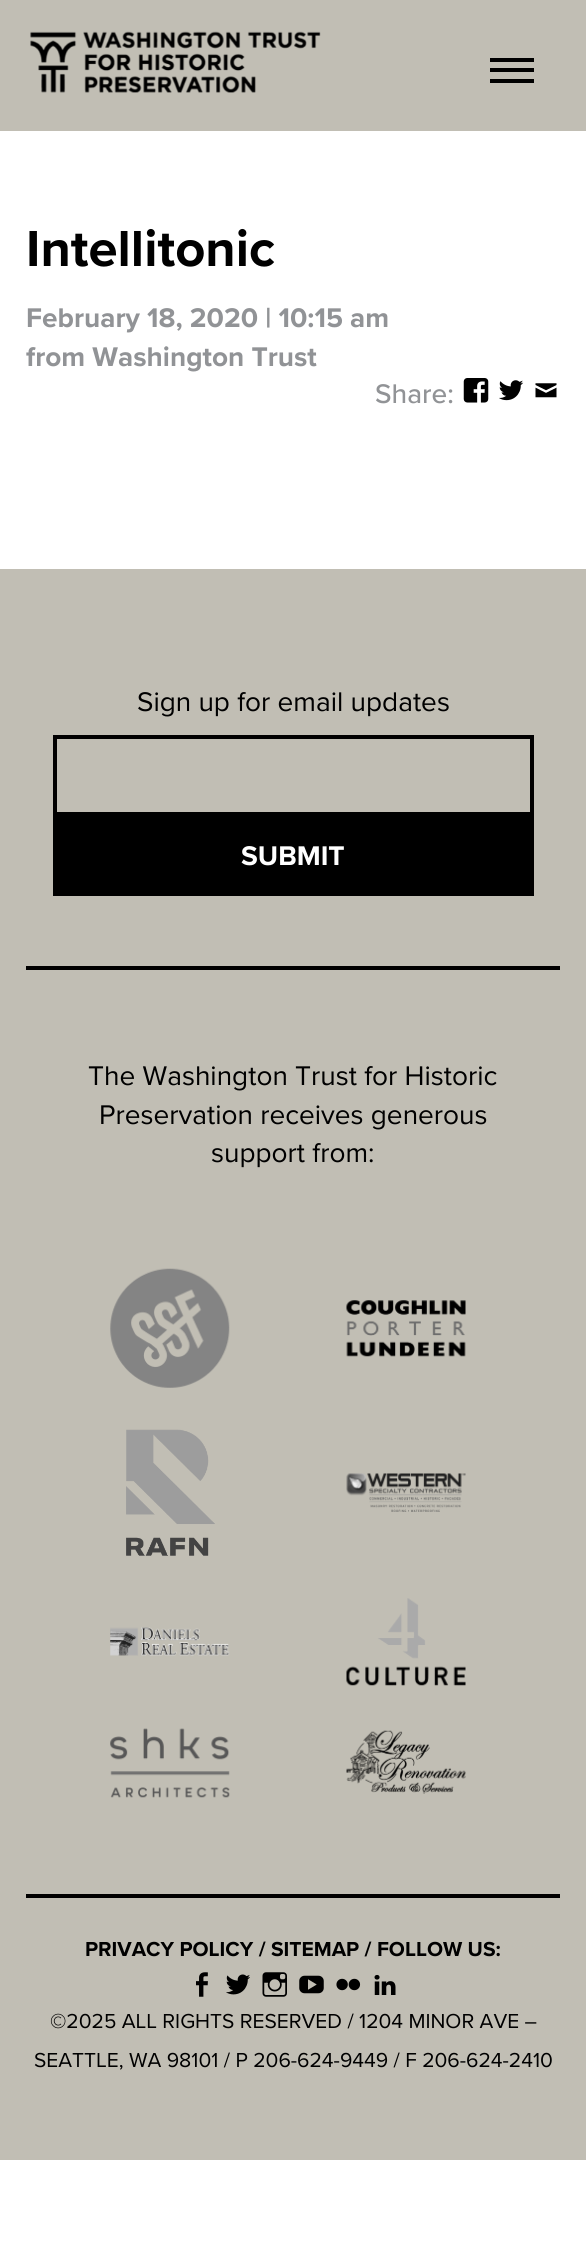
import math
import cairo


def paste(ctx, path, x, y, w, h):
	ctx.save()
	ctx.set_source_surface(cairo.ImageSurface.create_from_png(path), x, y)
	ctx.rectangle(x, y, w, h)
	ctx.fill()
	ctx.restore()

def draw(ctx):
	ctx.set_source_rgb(0.757, 0.745, 0.706)
	ctx.paint()
	ctx.set_source_rgb(1, 1, 1)
	ctx.rectangle(0, 131, 586, 2135)
	ctx.fill()
	paste(ctx, 'media/1.png', 30, 31, 291, 62)
	ctx.set_source_rgb(0, 0, 0)
	ctx.rectangle(490, 68, 44, 4)
	ctx.rectangle(490, 58, 44, 4)
	ctx.rectangle(490, 79, 44, 4)
	ctx.fill()
	ctx.select_font_face('Proxima Nova', cairo.FONT_SLANT_NORMAL, cairo.FONT_WEIGHT_BOLD)
	ctx.set_font_size(52.5)
	ctx.move_to(26, 266)
	ctx.show_text('Intellitonic')
	ctx.set_font_size(28)
	ctx.set_source_rgb(0.569, 0.576, 0.588)
	ctx.move_to(26, 327)
	ctx.show_text('February 18, 2020 | 10:15 am')
	ctx.move_to(26, 366)
	ctx.show_text('from Washington Trust')
	ctx.select_font_face('Proxima Nova Medium')
	ctx.move_to(375, 403)
	ctx.show_text('Share:')
	paste(ctx, 'media/2.png', 463, 378, 26, 25)
	paste(ctx, 'media/3.png', 499, 380, 25, 21)
	paste(ctx, 'media/4.png', 535, 383, 22, 15)
	ctx.set_source_rgb(0.757, 0.745, 0.706)
	ctx.rectangle(0, 569, 586, 1591)
	ctx.fill()
	ctx.select_font_face('Proxima Nova')
	ctx.set_source_rgb(0, 0, 0)
	ctx.move_to(137, 711)
	ctx.show_text('Sign up for email updates')
	ctx.rectangle(55, 737, 477, 77)
	ctx.set_line_width(4)
	ctx.stroke()
	ctx.rectangle(53, 816, 481, 80)
	ctx.fill()
	ctx.select_font_face('Proxima Nova', cairo.FONT_SLANT_NORMAL, cairo.FONT_WEIGHT_BOLD)
	ctx.set_source_rgb(1, 1, 1)
	ctx.move_to(241, 865)
	ctx.show_text('SUBMIT')
	ctx.set_source_rgb(0, 0, 0)
	ctx.rectangle(26, 966, 534, 4)
	ctx.fill()
	ctx.select_font_face('Proxima Nova')
	for x, y, s in [
		(88, 1085, 'The Washington Trust for Historic'),
		(99, 1124, 'Preservation receives generous'),
		(211, 1162, 'support from:'),
	]:
		ctx.move_to(x, y)
		ctx.show_text(s)
	paste(ctx, 'media/5.png', 110, 1268, 120, 120)
	paste(ctx, 'media/6.png', 346, 1300, 120, 57)
	paste(ctx, 'media/7.png', 126, 1429, 89, 127)
	paste(ctx, 'media/8.png', 346, 1473, 120, 39)
	paste(ctx, 'media/9.png', 110, 1627, 120, 29)
	paste(ctx, 'media/10.png', 346, 1598, 120, 88)
	paste(ctx, 'media/11.png', 110, 1728, 120, 70)
	paste(ctx, 'media/12.png', 346, 1730, 120, 64)
	ctx.rectangle(26, 1894, 534, 4)
	ctx.fill()
	ctx.select_font_face('Proxima Nova', cairo.FONT_SLANT_NORMAL, cairo.FONT_WEIGHT_BOLD)
	ctx.set_font_size(21)
	ctx.move_to(85, 1956)
	ctx.show_text('PRIVACY POLICY / SITEMAP / FOLLOW US:')
	paste(ctx, 'media/13.png', 196, 1972, 12, 25)
	paste(ctx, 'media/14.png', 226, 1974, 24, 21)
	paste(ctx, 'media/15.png', 262, 1972, 25, 25)
	paste(ctx, 'media/16.png', 299, 1975, 25, 19)
	paste(ctx, 'media/17.png', 336, 1978, 25, 13)
	paste(ctx, 'media/18.png', 374, 1974, 22, 21)
	ctx.select_font_face('Proxima Nova')
	ctx.move_to(50, 2028)
	ctx.show_text('©2025 ALL RIGHTS RESERVED / 1204 MINOR AVE –')
	ctx.move_to(34, 2067)
	ctx.show_text('SEATTLE, WA 98101 / P 206-624-9449 / F 206-624-2410')


surface = cairo.ImageSurface(cairo.FORMAT_RGB24, 586, 2266)
ctx = cairo.Context(surface)
options = cairo.FontOptions()
options.set_hint_metrics(cairo.HINT_METRICS_OFF)
options.set_hint_style(cairo.HINT_STYLE_NONE)
ctx.set_font_options(options)
ctx.set_miter_limit(4)
draw(ctx)
surface.write_to_png('image.png')
